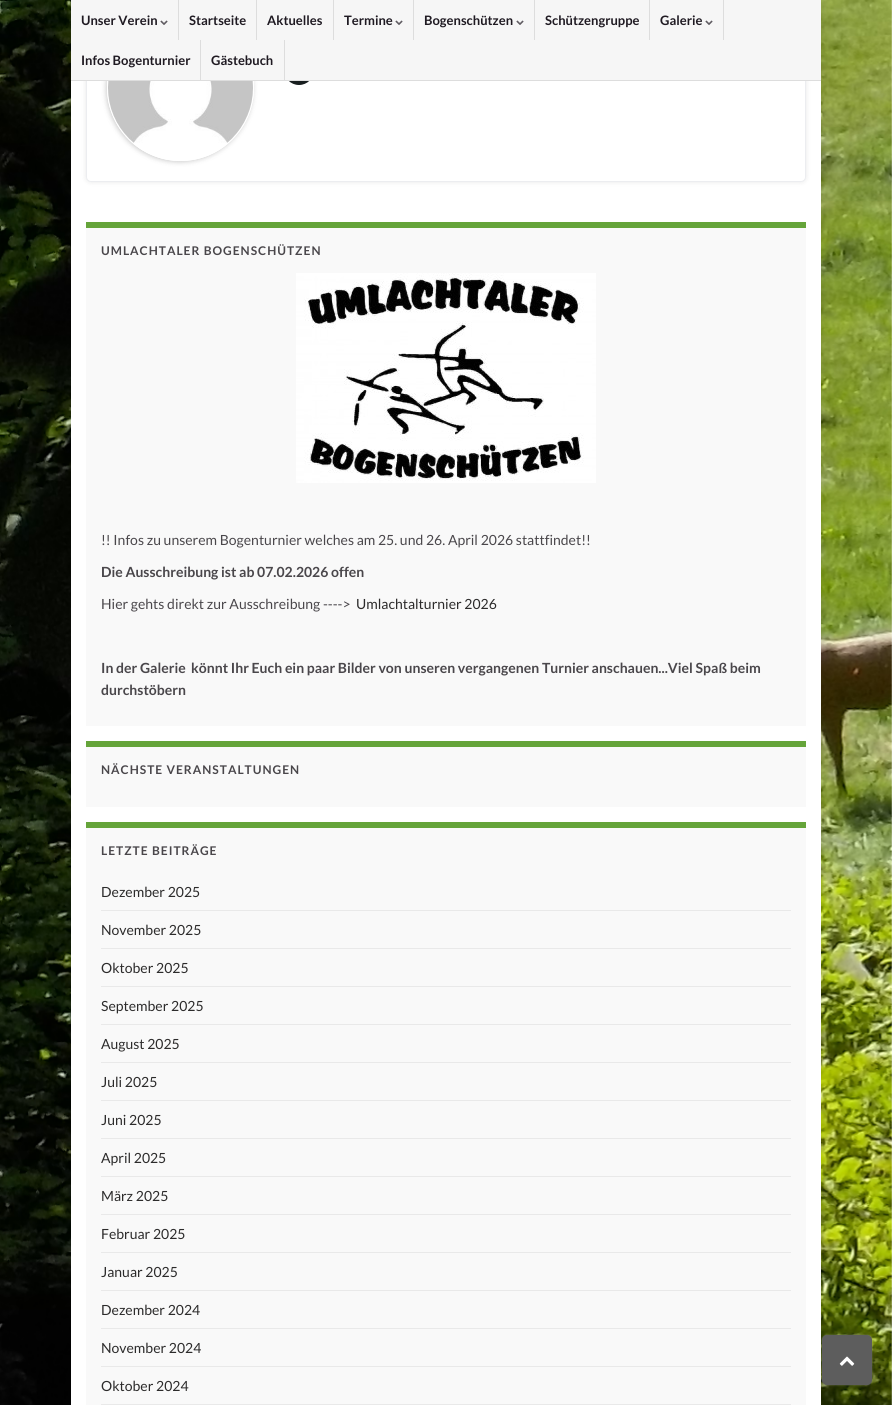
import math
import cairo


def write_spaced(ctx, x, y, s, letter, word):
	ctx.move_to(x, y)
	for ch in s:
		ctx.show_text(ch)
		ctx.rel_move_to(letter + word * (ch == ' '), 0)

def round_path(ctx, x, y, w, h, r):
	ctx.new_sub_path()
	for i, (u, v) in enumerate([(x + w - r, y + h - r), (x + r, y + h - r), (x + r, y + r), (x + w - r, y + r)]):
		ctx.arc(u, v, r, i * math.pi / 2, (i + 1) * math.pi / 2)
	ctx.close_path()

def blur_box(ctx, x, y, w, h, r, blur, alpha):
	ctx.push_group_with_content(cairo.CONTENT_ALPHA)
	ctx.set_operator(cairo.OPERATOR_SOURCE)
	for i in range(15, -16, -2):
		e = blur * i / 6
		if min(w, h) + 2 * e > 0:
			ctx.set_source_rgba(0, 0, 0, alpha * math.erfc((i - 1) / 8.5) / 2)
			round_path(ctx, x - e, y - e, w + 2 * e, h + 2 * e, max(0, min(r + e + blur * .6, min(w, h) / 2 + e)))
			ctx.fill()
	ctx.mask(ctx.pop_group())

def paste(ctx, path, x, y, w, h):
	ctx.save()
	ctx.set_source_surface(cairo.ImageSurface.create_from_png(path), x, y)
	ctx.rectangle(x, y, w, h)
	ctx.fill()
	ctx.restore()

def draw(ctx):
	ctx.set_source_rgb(1, 1, 1)
	ctx.paint()
	paste(ctx, 'media/1.png', 0, 0, 892, 1405)
	ctx.set_source_rgb(0, 0, 0)
	blur_box(ctx, 71, -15, 750, 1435, 0, 5, 0.1)
	ctx.set_source_rgb(1, 1, 1)
	ctx.rectangle(71, 81, 750, 1324)
	ctx.fill()
	ctx.set_source_rgb(0, 0, 0)
	blur_box(ctx, 86, -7, 720, 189, 5, 2.5, 0.1)
	ctx.set_source_rgb(1, 1, 1)
	round_path(ctx, 86.5, -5.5, 719, 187, 4.5)
	ctx.fill_preserve()
	ctx.set_source_rgb(0.922, 0.929, 0.941)
	ctx.set_line_width(1)
	ctx.stroke()
	ctx.save()
	ctx.set_fill_rule(cairo.FILL_RULE_EVEN_ODD)
	ctx.new_path()
	ctx.move_to(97, 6)
	ctx.line_to(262, 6)
	ctx.line_to(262, 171)
	ctx.line_to(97, 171)
	ctx.close_path()
	ctx.move_to(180.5, 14)
	ctx.curve_to(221, 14, 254, 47, 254, 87.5)
	ctx.curve_to(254, 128, 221, 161, 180.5, 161)
	ctx.curve_to(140, 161, 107, 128, 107, 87.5)
	ctx.curve_to(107, 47, 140, 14, 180.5, 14)
	ctx.close_path()
	ctx.clip()
	ctx.set_source_rgb(0, 0, 0)
	blur_box(ctx, 106, 15, 147, 147, 73.5, 2.5, 0.2)
	ctx.restore()
	ctx.arc(180.5, 87.5, 73, 0, 2 * math.pi)
	ctx.set_source_rgb(1, 1, 1)
	ctx.stroke()
	ctx.set_source_rgb(0.094, 0.118, 0.122)
	ctx.arc(299, 70, 15, 0, 2 * math.pi)
	ctx.fill()
	ctx.set_source_rgb(0.961, 0.961, 0.961)
	ctx.rectangle(71, 0, 750, 80)
	ctx.fill()
	ctx.set_source_rgb(0.867, 0.867, 0.867)
	ctx.rectangle(178, 0, 1, 40)
	ctx.fill()
	ctx.select_font_face('Lato', cairo.FONT_SLANT_NORMAL, cairo.FONT_WEIGHT_BOLD)
	ctx.set_font_size(13)
	ctx.set_source_rgb(0.122, 0.102, 0.133)
	ctx.move_to(81, 25)
	ctx.show_text('Unser Verein')
	paste(ctx, 'media/2.png', 160, 20, 8, 5)
	ctx.set_source_rgb(0.867, 0.867, 0.867)
	ctx.rectangle(256, 0, 1, 40)
	ctx.fill()
	ctx.set_source_rgb(0.122, 0.102, 0.133)
	ctx.move_to(189, 25)
	ctx.show_text('Startseite')
	ctx.set_source_rgb(0.867, 0.867, 0.867)
	ctx.rectangle(333, 0, 1, 40)
	ctx.fill()
	ctx.set_source_rgb(0.122, 0.102, 0.133)
	ctx.move_to(267, 25)
	ctx.show_text('Aktuelles')
	ctx.set_source_rgb(0.867, 0.867, 0.867)
	ctx.rectangle(413, 0, 1, 40)
	ctx.fill()
	ctx.set_source_rgb(0.122, 0.102, 0.133)
	ctx.move_to(344, 25)
	ctx.show_text('Termine')
	paste(ctx, 'media/2.png', 395, 20, 8, 5)
	ctx.set_source_rgb(0.867, 0.867, 0.867)
	ctx.rectangle(534, 0, 1, 40)
	ctx.fill()
	ctx.set_source_rgb(0.122, 0.102, 0.133)
	ctx.move_to(424, 25)
	ctx.show_text('Bogenschützen')
	paste(ctx, 'media/2.png', 516, 20, 8, 5)
	ctx.set_source_rgb(0.867, 0.867, 0.867)
	ctx.rectangle(649, 0, 1, 40)
	ctx.fill()
	ctx.set_source_rgb(0.122, 0.102, 0.133)
	ctx.move_to(545, 25)
	ctx.show_text('Schützengruppe')
	ctx.set_source_rgb(0.867, 0.867, 0.867)
	ctx.rectangle(723, 0, 1, 40)
	ctx.fill()
	ctx.set_source_rgb(0.122, 0.102, 0.133)
	ctx.move_to(660, 25)
	ctx.show_text('Galerie')
	paste(ctx, 'media/2.png', 705, 20, 8, 5)
	ctx.set_source_rgb(0.867, 0.867, 0.867)
	ctx.rectangle(200, 40, 1, 40)
	ctx.fill()
	ctx.set_source_rgb(0.122, 0.102, 0.133)
	ctx.move_to(81, 65)
	ctx.show_text('Infos Bogenturnier')
	ctx.set_source_rgb(0.867, 0.867, 0.867)
	ctx.rectangle(284, 40, 1, 40)
	ctx.fill()
	ctx.set_source_rgb(0.122, 0.102, 0.133)
	ctx.move_to(211, 65)
	ctx.show_text('Gästebuch')
	ctx.set_source_rgb(0.867, 0.867, 0.867)
	ctx.rectangle(71, 80, 750, 1)
	ctx.fill()
	paste(ctx, 'media/3.png', 108, 81, 145, 62)
	ctx.set_source_rgb(0.976, 0.976, 0.976)
	ctx.rectangle(86, 228, 720, 498)
	ctx.fill()
	ctx.set_source_rgb(0.396, 0.643, 0.227)
	ctx.rectangle(86, 222, 720, 6)
	ctx.fill()
	ctx.set_font_size(12)
	ctx.set_source_rgb(0.29, 0.278, 0.294)
	write_spaced(ctx, 101, 255, 'UMLACHTALER BOGENSCHÜTZEN', 1, 0)
	paste(ctx, 'media/4.png', 296, 273, 300, 210)
	ctx.select_font_face('Lato')
	ctx.set_font_size(14)
	ctx.move_to(101, 545)
	ctx.show_text('!! Infos zu unserem Bogenturnier welches am 25. und 26. April 2026 stattfindet!!')
	ctx.select_font_face('Lato', cairo.FONT_SLANT_NORMAL, cairo.FONT_WEIGHT_BOLD)
	ctx.move_to(101, 577)
	ctx.show_text('Die Ausschreibung ist ab 07.02.2026 offen')
	ctx.select_font_face('Lato')
	ctx.move_to(101, 609)
	ctx.show_text('Hier gehts direkt zur Ausschreibung ---->')
	ctx.set_source_rgb(0.173, 0.169, 0.169)
	ctx.move_to(356, 609)
	ctx.show_text('Umlachtalturnier 2026')
	ctx.select_font_face('Lato', cairo.FONT_SLANT_NORMAL, cairo.FONT_WEIGHT_BOLD)
	ctx.set_source_rgb(0.29, 0.278, 0.294)
	ctx.move_to(101, 673)
	ctx.show_text('In der Galerie  könnt Ihr Euch ein paar Bilder von unseren vergangenen Turnier anschauen...Viel Spaß beim')
	ctx.move_to(101, 695)
	ctx.show_text('durchstöbern')
	ctx.set_source_rgb(0.976, 0.976, 0.976)
	ctx.rectangle(86, 747, 720, 60)
	ctx.fill()
	ctx.set_source_rgb(0.396, 0.643, 0.227)
	ctx.rectangle(86, 741, 720, 6)
	ctx.fill()
	ctx.set_font_size(12)
	ctx.set_source_rgb(0.29, 0.278, 0.294)
	write_spaced(ctx, 101, 774, 'NÄCHSTE VERANSTALTUNGEN', 1, 0)
	ctx.set_source_rgb(0.976, 0.976, 0.976)
	ctx.rectangle(86, 828, 720, 577)
	ctx.fill()
	ctx.set_source_rgb(0.396, 0.643, 0.227)
	ctx.rectangle(86, 822, 720, 6)
	ctx.fill()
	ctx.set_source_rgb(0.29, 0.278, 0.294)
	write_spaced(ctx, 101, 855, 'LETZTE BEITRÄGE', 1, 0)
	ctx.set_source_rgb(0.914, 0.914, 0.914)
	ctx.rectangle(101, 910, 690, 1)
	ctx.fill()
	ctx.select_font_face('Lato')
	ctx.set_font_size(14)
	ctx.set_source_rgb(0.173, 0.169, 0.169)
	ctx.move_to(101, 897)
	ctx.show_text('Dezember 2025')
	ctx.set_source_rgb(0.914, 0.914, 0.914)
	ctx.rectangle(101, 948, 690, 1)
	ctx.fill()
	ctx.set_source_rgb(0.173, 0.169, 0.169)
	ctx.move_to(101, 935)
	ctx.show_text('November 2025')
	ctx.set_source_rgb(0.914, 0.914, 0.914)
	ctx.rectangle(101, 986, 690, 1)
	ctx.fill()
	ctx.set_source_rgb(0.173, 0.169, 0.169)
	ctx.move_to(101, 973)
	ctx.show_text('Oktober 2025')
	ctx.set_source_rgb(0.914, 0.914, 0.914)
	ctx.rectangle(101, 1024, 690, 1)
	ctx.fill()
	ctx.set_source_rgb(0.173, 0.169, 0.169)
	ctx.move_to(101, 1011)
	ctx.show_text('September 2025')
	ctx.set_source_rgb(0.914, 0.914, 0.914)
	ctx.rectangle(101, 1062, 690, 1)
	ctx.fill()
	ctx.set_source_rgb(0.173, 0.169, 0.169)
	ctx.move_to(101, 1049)
	ctx.show_text('August 2025')
	ctx.set_source_rgb(0.914, 0.914, 0.914)
	ctx.rectangle(101, 1100, 690, 1)
	ctx.fill()
	ctx.set_source_rgb(0.173, 0.169, 0.169)
	ctx.move_to(101, 1087)
	ctx.show_text('Juli 2025')
	ctx.set_source_rgb(0.914, 0.914, 0.914)
	ctx.rectangle(101, 1138, 690, 1)
	ctx.fill()
	ctx.set_source_rgb(0.173, 0.169, 0.169)
	ctx.move_to(101, 1125)
	ctx.show_text('Juni 2025')
	ctx.set_source_rgb(0.914, 0.914, 0.914)
	ctx.rectangle(101, 1176, 690, 1)
	ctx.fill()
	ctx.set_source_rgb(0.173, 0.169, 0.169)
	ctx.move_to(101, 1163)
	ctx.show_text('April 2025')
	ctx.set_source_rgb(0.914, 0.914, 0.914)
	ctx.rectangle(101, 1214, 690, 1)
	ctx.fill()
	ctx.set_source_rgb(0.173, 0.169, 0.169)
	ctx.move_to(101, 1201)
	ctx.show_text('März 2025')
	ctx.set_source_rgb(0.914, 0.914, 0.914)
	ctx.rectangle(101, 1252, 690, 1)
	ctx.fill()
	ctx.set_source_rgb(0.173, 0.169, 0.169)
	ctx.move_to(101, 1239)
	ctx.show_text('Februar 2025')
	ctx.set_source_rgb(0.914, 0.914, 0.914)
	ctx.rectangle(101, 1290, 690, 1)
	ctx.fill()
	ctx.set_source_rgb(0.173, 0.169, 0.169)
	ctx.move_to(101, 1277)
	ctx.show_text('Januar 2025')
	ctx.set_source_rgb(0.914, 0.914, 0.914)
	ctx.rectangle(101, 1328, 690, 1)
	ctx.fill()
	ctx.set_source_rgb(0.173, 0.169, 0.169)
	ctx.move_to(101, 1315)
	ctx.show_text('Dezember 2024')
	ctx.set_source_rgb(0.914, 0.914, 0.914)
	ctx.rectangle(101, 1366, 690, 1)
	ctx.fill()
	ctx.set_source_rgb(0.173, 0.169, 0.169)
	ctx.move_to(101, 1353)
	ctx.show_text('November 2024')
	ctx.set_source_rgb(0.914, 0.914, 0.914)
	ctx.rectangle(101, 1404, 690, 1)
	ctx.fill()
	ctx.set_source_rgb(0.173, 0.169, 0.169)
	ctx.move_to(101, 1391)
	ctx.show_text('Oktober 2024')
	ctx.set_source_rgb(1, 1, 1)
	blur_box(ctx, 822, 1335, 50, 50, 5, 1, 0.3)
	ctx.set_source_rgb(0.365, 0.365, 0.365)
	round_path(ctx, 822, 1335, 50, 50, 5)
	ctx.fill()
	paste(ctx, 'media/5.png', 839, 1356, 16, 10)


surface = cairo.ImageSurface(cairo.FORMAT_RGB24, 892, 1405)
ctx = cairo.Context(surface)
options = cairo.FontOptions()
options.set_hint_metrics(cairo.HINT_METRICS_OFF)
options.set_hint_style(cairo.HINT_STYLE_NONE)
ctx.set_font_options(options)
ctx.set_miter_limit(4)
draw(ctx)
surface.write_to_png('image.png')
